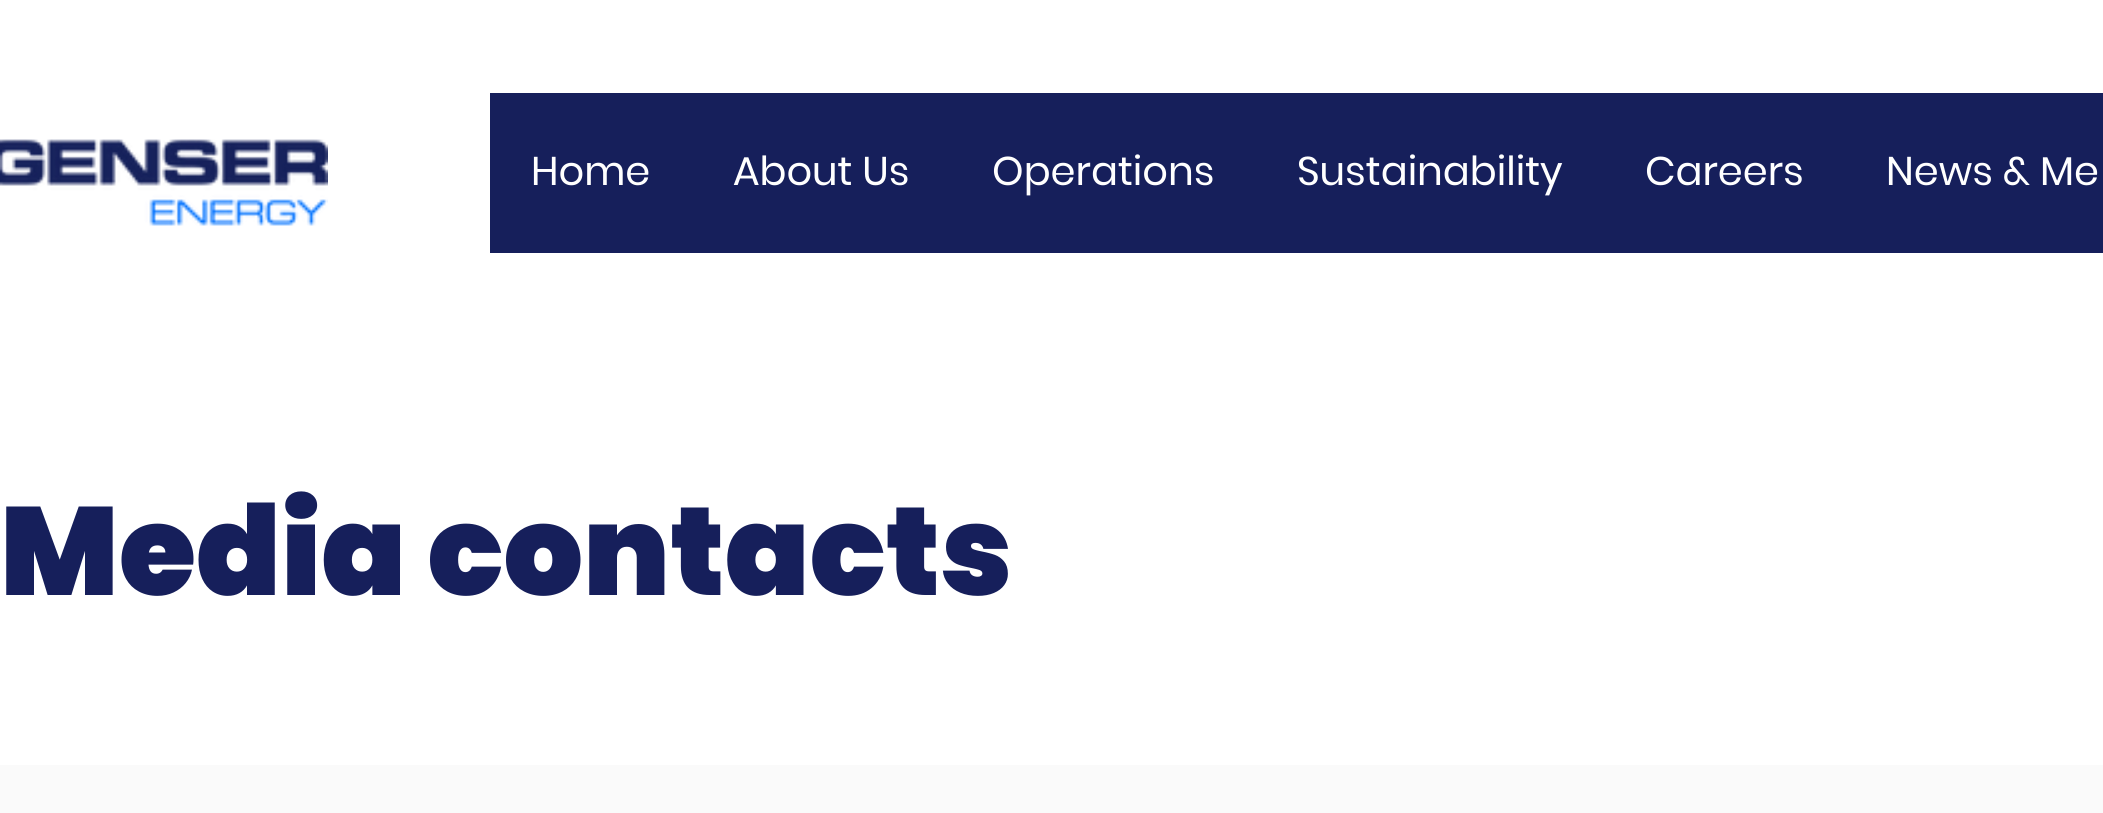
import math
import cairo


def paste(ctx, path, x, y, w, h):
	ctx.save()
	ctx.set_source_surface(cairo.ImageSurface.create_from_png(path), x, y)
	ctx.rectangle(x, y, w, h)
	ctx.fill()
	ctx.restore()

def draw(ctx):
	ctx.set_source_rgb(1, 1, 1)
	ctx.paint()
	paste(ctx, 'media/1.png', 0, 139, 328, 87)
	ctx.set_source_rgb(0.086, 0.122, 0.357)
	ctx.rectangle(490, 93, 1613, 160)
	ctx.fill()
	ctx.select_font_face('Poppins')
	ctx.set_font_size(40)
	ctx.set_source_rgb(1, 1, 1)
	for x, y, s in [
		(531, 185, 'Home'),
		(733, 185, 'About Us'),
		(992, 185, 'Operations'),
		(1297, 185, 'Sustainability'),
		(1645, 185, 'Careers'),
		(1886, 185, 'News & Me'),
	]:
		ctx.move_to(x, y)
		ctx.show_text(s)
	ctx.select_font_face('Poppins Black')
	ctx.set_font_size(125)
	ctx.set_source_rgb(0.086, 0.122, 0.357)
	ctx.move_to(0, 595)
	ctx.show_text('Media contacts')
	ctx.set_source_rgb(0.98, 0.98, 0.98)
	ctx.rectangle(0, 765, 2103, 48)
	ctx.fill()


surface = cairo.ImageSurface(cairo.FORMAT_RGB24, 2103, 813)
ctx = cairo.Context(surface)
options = cairo.FontOptions()
options.set_hint_metrics(cairo.HINT_METRICS_OFF)
options.set_hint_style(cairo.HINT_STYLE_NONE)
ctx.set_font_options(options)
ctx.set_miter_limit(4)
draw(ctx)
surface.write_to_png('image.png')
